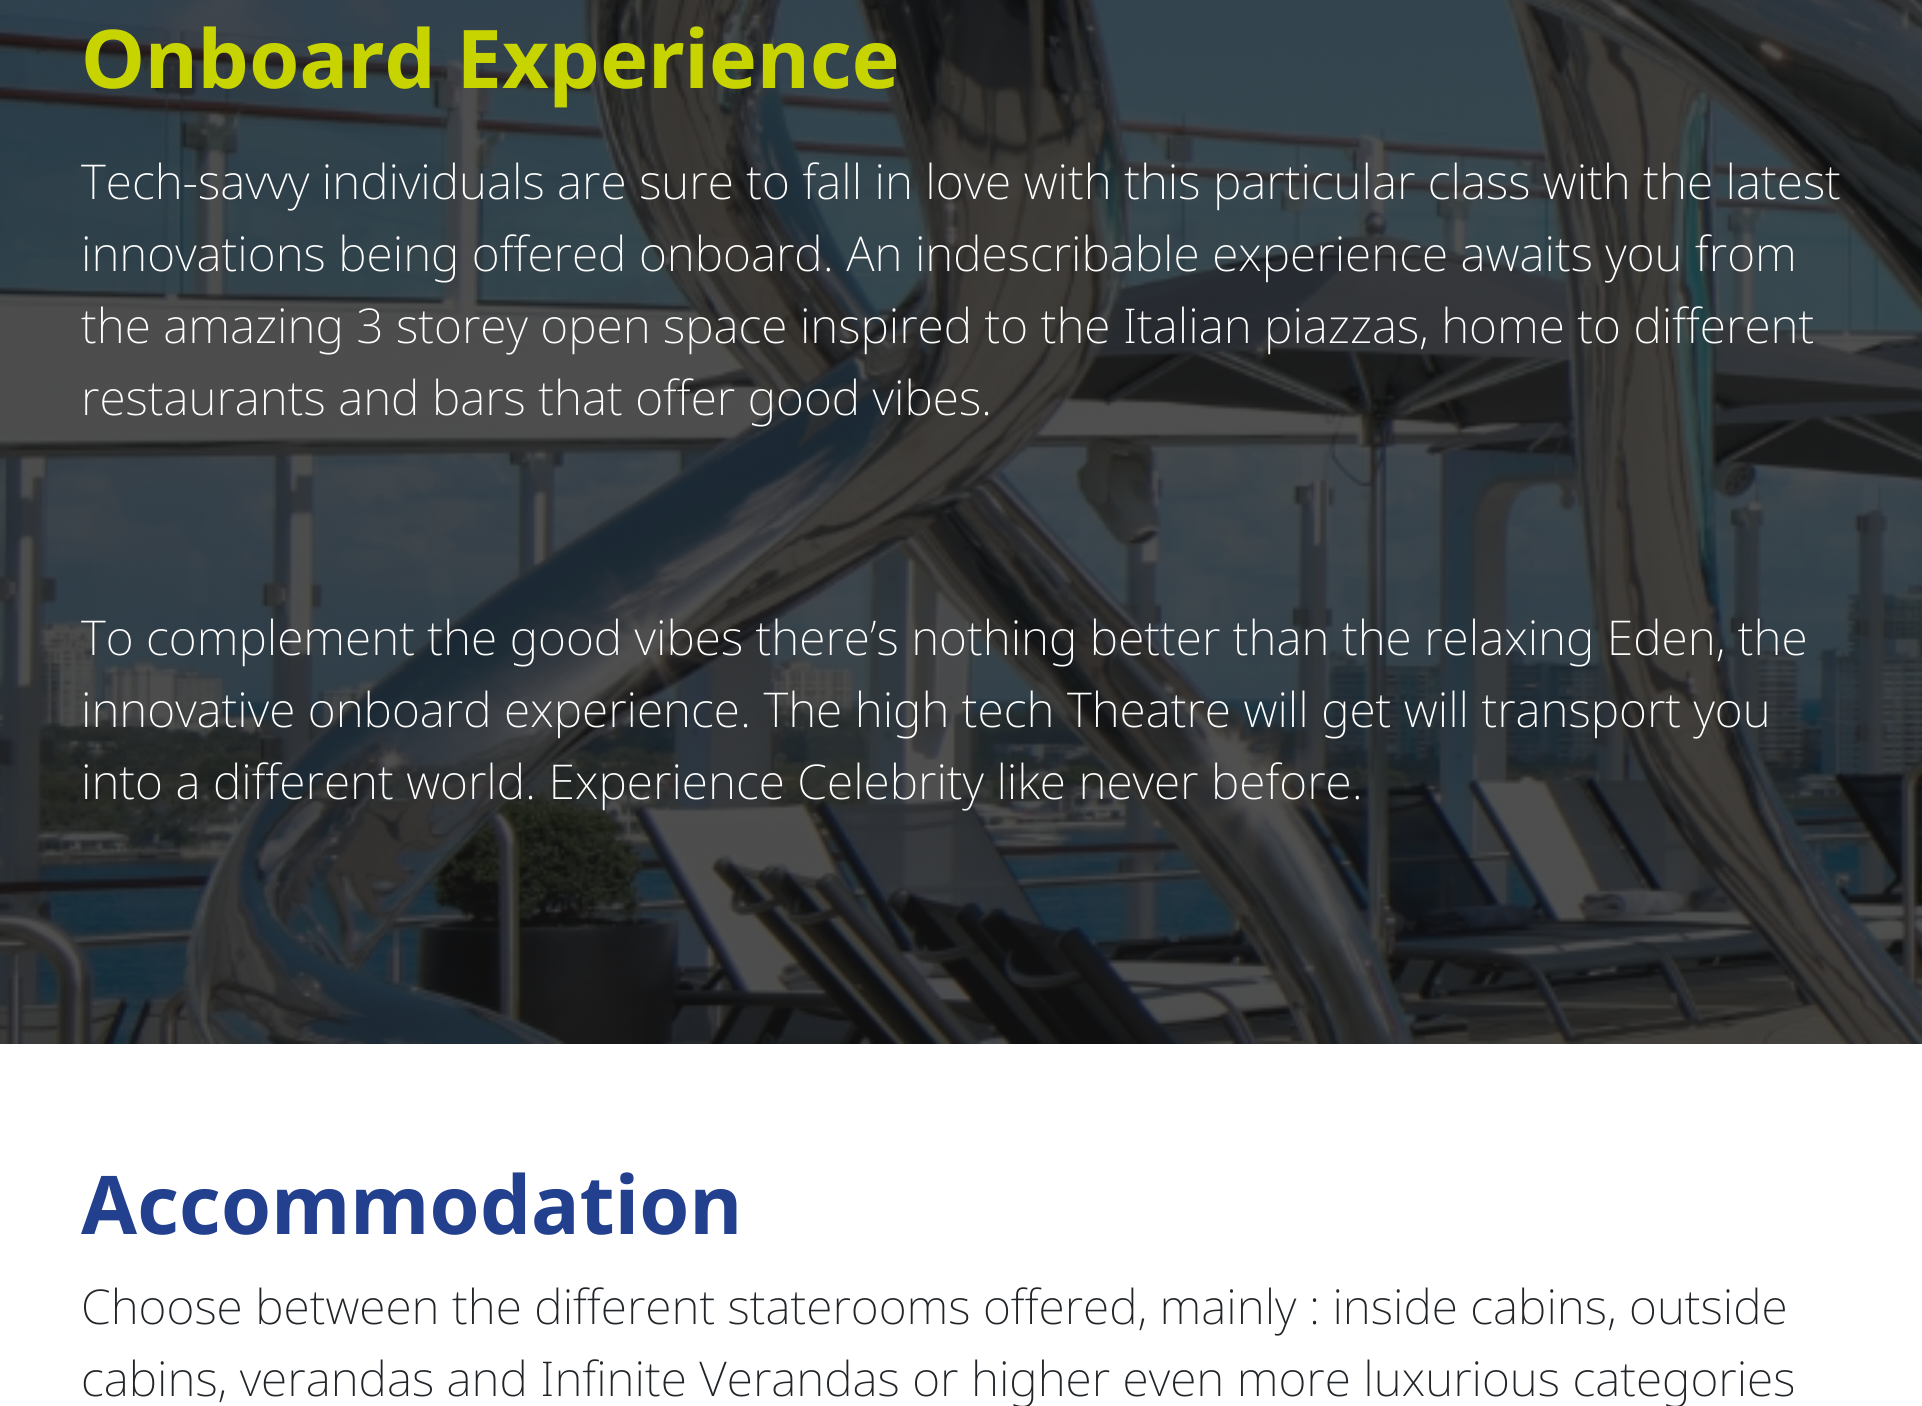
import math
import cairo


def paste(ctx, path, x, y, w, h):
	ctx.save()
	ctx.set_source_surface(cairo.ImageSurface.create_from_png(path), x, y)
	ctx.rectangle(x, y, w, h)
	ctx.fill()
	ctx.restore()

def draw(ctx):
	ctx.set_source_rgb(1, 1, 1)
	ctx.paint()
	paste(ctx, 'media/1.png', 0, 0, 1922, 1044)
	ctx.select_font_face('Noto Sans', cairo.FONT_SLANT_NORMAL, cairo.FONT_WEIGHT_BOLD)
	ctx.set_font_size(81)
	ctx.set_source_rgb(0.784, 0.831, 0)
	ctx.move_to(81, 88)
	ctx.show_text('Onboard Experience')
	ctx.select_font_face('Noto Sans ExtraLight')
	ctx.set_font_size(48)
	ctx.set_source_rgb(1, 1, 1)
	for x, y, s in [
		(81, 199, 'Tech-savvy individuals are sure to fall in love with this particular class with the latest'),
		(81, 271, 'innovations being offered onboard. An indescribable experience awaits you from'),
		(81, 343, 'the amazing 3 storey open space inspired to the Italian piazzas, home to different'),
		(81, 415, 'restaurants and bars that offer good vibes.'),
		(81, 655, 'To complement the good vibes there’s nothing better than the relaxing Eden, the'),
		(81, 727, 'innovative onboard experience. The high tech Theatre will get will transport you'),
		(81, 799, 'into a different world. Experience Celebrity like never before.'),
	]:
		ctx.move_to(x, y)
		ctx.show_text(s)
	ctx.select_font_face('Noto Sans', cairo.FONT_SLANT_NORMAL, cairo.FONT_WEIGHT_BOLD)
	ctx.set_font_size(81)
	ctx.set_source_rgb(0.137, 0.251, 0.561)
	ctx.move_to(81, 1234)
	ctx.show_text('Accommodation')
	ctx.select_font_face('Noto Sans ExtraLight')
	ctx.set_font_size(48)
	ctx.set_source_rgb(0.129, 0.145, 0.161)
	ctx.move_to(81, 1324)
	ctx.show_text('Choose between the different staterooms offered, mainly : inside cabins, outside')
	ctx.move_to(81, 1396)
	ctx.show_text('cabins, verandas and Infinite Verandas or higher even more luxurious categories')


surface = cairo.ImageSurface(cairo.FORMAT_RGB24, 1922, 1406)
ctx = cairo.Context(surface)
options = cairo.FontOptions()
options.set_hint_metrics(cairo.HINT_METRICS_OFF)
options.set_hint_style(cairo.HINT_STYLE_NONE)
ctx.set_font_options(options)
ctx.set_miter_limit(4)
draw(ctx)
surface.write_to_png('image.png')
